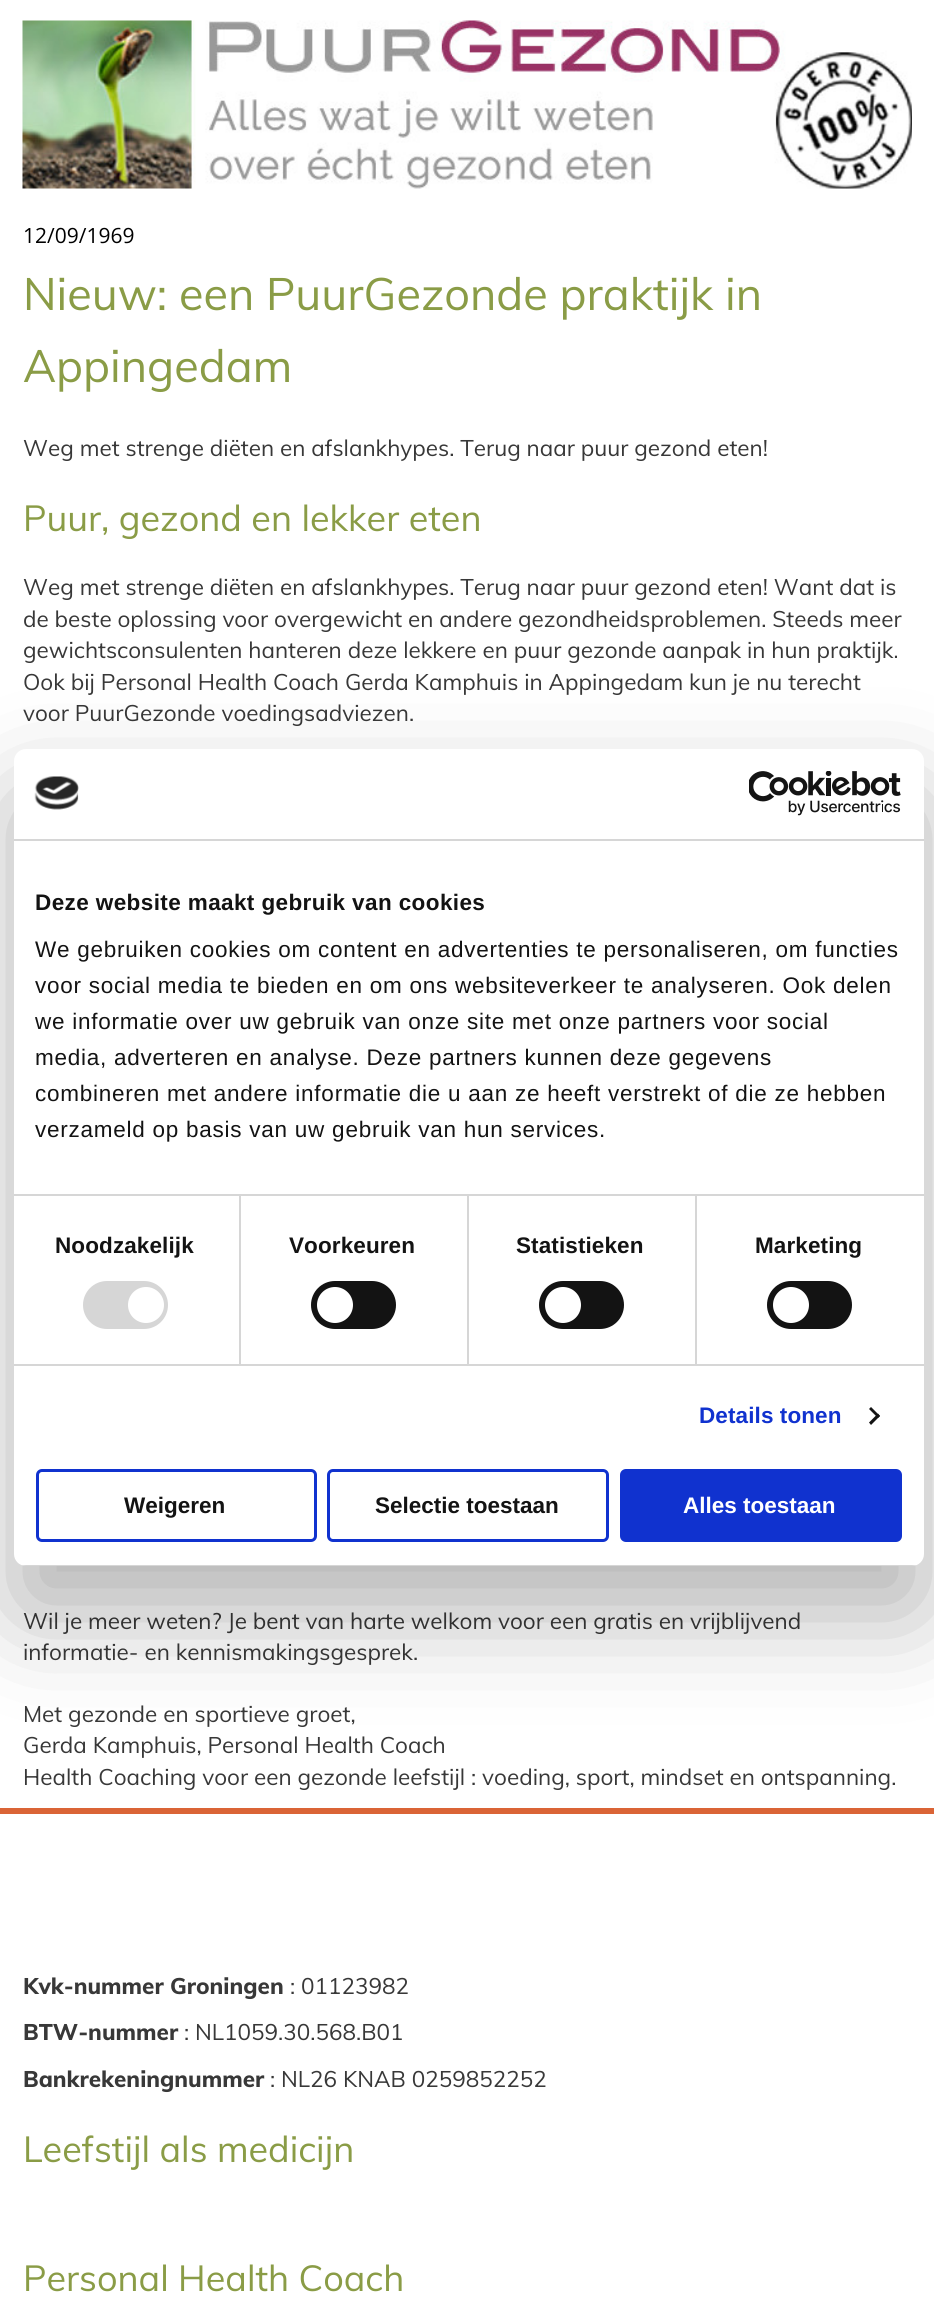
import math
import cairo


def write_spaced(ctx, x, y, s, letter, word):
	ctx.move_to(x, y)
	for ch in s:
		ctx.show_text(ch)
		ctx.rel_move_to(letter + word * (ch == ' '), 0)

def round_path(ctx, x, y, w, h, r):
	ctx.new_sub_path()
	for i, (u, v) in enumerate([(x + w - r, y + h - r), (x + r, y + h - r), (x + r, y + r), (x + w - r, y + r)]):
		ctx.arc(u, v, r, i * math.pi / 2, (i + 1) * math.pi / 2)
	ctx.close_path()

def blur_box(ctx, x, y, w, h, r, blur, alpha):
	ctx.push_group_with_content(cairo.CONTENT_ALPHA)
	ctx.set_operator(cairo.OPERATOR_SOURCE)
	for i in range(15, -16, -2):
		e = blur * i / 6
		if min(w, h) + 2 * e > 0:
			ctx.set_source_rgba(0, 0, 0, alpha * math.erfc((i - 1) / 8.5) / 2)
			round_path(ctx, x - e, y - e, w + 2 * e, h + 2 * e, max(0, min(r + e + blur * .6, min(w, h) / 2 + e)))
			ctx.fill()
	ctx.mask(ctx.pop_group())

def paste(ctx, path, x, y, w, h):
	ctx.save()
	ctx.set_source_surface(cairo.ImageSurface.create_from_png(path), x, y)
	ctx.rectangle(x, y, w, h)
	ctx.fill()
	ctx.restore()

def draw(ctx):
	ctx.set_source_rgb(1, 1, 1)
	ctx.paint()
	paste(ctx, 'media/1.png', 22, 20, 890, 169)
	ctx.select_font_face('Open Sans')
	ctx.set_font_size(21)
	ctx.set_source_rgb(0, 0, 0)
	ctx.move_to(23, 243)
	ctx.show_text('12/09/1969')
	ctx.select_font_face('Muli')
	ctx.set_font_size(45)
	ctx.set_source_rgb(0.541, 0.612, 0.275)
	ctx.move_to(23, 310)
	ctx.show_text('Nieuw: een PuurGezonde praktijk in')
	ctx.move_to(23, 382)
	ctx.show_text('Appingedam')
	ctx.set_font_size(22.5)
	ctx.set_source_rgb(0.22, 0.22, 0.22)
	ctx.move_to(23, 456)
	ctx.show_text('Weg met strenge diëten en afslankhypes. Terug naar puur gezond eten!')
	ctx.set_font_size(36)
	ctx.set_source_rgb(0.541, 0.612, 0.275)
	ctx.move_to(23, 531)
	ctx.show_text('Puur, gezond en lekker eten')
	ctx.set_font_size(22.5)
	ctx.set_source_rgb(0.22, 0.22, 0.22)
	for x, y, s in [
		(23, 595, 'Weg met strenge diëten en afslankhypes. Terug naar puur gezond eten! Want dat is'),
		(23, 627, 'de beste oplossing voor overgewicht en andere gezondheidsproblemen. Steeds meer'),
		(23, 658, 'gewichtsconsulenten hanteren deze lekkere en puur gezonde aanpak in hun praktijk.'),
		(23, 690, 'Ook bij Personal Health Coach Gerda Kamphuis in Appingedam kun je nu terecht'),
		(23, 721, 'voor PuurGezonde voedingsadviezen.'),
		(23, 1629, 'Wil je meer weten? Je bent van harte welkom voor een gratis en vrijblijvend'),
		(23, 1660, 'informatie- en kennismakingsgesprek.'),
		(23, 1722, 'Met gezonde en sportieve groet,'),
		(23, 1753, 'Gerda Kamphuis, Personal Health Coach'),
		(23, 1785, 'Health Coaching voor een gezonde leefstijl : voeding, sport, mindset en ontspanning.'),
	]:
		ctx.move_to(x, y)
		ctx.show_text(s)
	ctx.set_source_rgb(0.855, 0.392, 0.212)
	ctx.rectangle(0, 1808, 934, 6)
	ctx.fill()
	ctx.select_font_face('Muli ExtraBold')
	ctx.set_source_rgb(0.22, 0.22, 0.22)
	ctx.move_to(23, 1994)
	ctx.show_text('Kvk-nummer Groningen')
	ctx.select_font_face('Muli')
	ctx.move_to(290, 1994)
	ctx.show_text(': 01123982')
	ctx.select_font_face('Muli ExtraBold')
	ctx.move_to(23, 2040)
	ctx.show_text('BTW-nummer')
	ctx.select_font_face('Muli')
	ctx.move_to(184, 2040)
	ctx.show_text(': NL1059.30.568.B01')
	ctx.select_font_face('Muli ExtraBold')
	ctx.move_to(23, 2087)
	ctx.show_text('Bankrekeningnummer')
	ctx.select_font_face('Muli')
	ctx.move_to(270, 2087)
	ctx.show_text(': NL26 KNAB 0259852252')
	ctx.set_font_size(36)
	ctx.set_source_rgb(0.541, 0.612, 0.275)
	ctx.move_to(23, 2162)
	ctx.show_text('Leefstijl als medicijn')
	ctx.move_to(23, 2291)
	ctx.show_text('Personal Health Coach')
	ctx.set_source_rgb(0, 0, 0)
	blur_box(ctx, 14, 797, 910, 817, 12, 51, 0.3)
	ctx.set_source_rgb(1, 1, 1)
	round_path(ctx, 14, 749, 910, 817, 12)
	ctx.fill()
	ctx.set_source_rgb(0.839, 0.839, 0.839)
	ctx.rectangle(14, 839, 910, 2)
	ctx.fill()
	paste(ctx, 'media/2.png', 34, 776, 45, 34)
	paste(ctx, 'media/3.png', 749, 771, 152, 45)
	ctx.rectangle(14, 1194, 910, 2)
	ctx.fill()
	ctx.select_font_face('Liberation Sans', cairo.FONT_SLANT_NORMAL, cairo.FONT_WEIGHT_BOLD)
	ctx.set_font_size(22.5)
	ctx.set_source_rgb(0.078, 0.078, 0.078)
	write_spaced(ctx, 35, 910, 'Deze website maakt gebruik van cookies', 0.4, 0)
	ctx.select_font_face('Liberation Sans')
	for x, y, s in [
		(35, 957, 'We gebruiken cookies om content en advertenties te personaliseren, om functies'),
		(35, 993, 'voor social media te bieden en om ons websiteverkeer te analyseren. Ook delen'),
		(35, 1029, 'we informatie over uw gebruik van onze site met onze partners voor social'),
		(35, 1065, 'media, adverteren en analyse. Deze partners kunnen deze gegevens'),
		(35, 1101, 'combineren met andere informatie die u aan ze heeft verstrekt of die ze hebben'),
		(35, 1137, 'verzameld op basis van uw gebruik van hun services.'),
	]:
		write_spaced(ctx, x, y, s, 0.75, 0)
	ctx.set_source_rgb(0.839, 0.839, 0.839)
	ctx.rectangle(14, 1364, 910, 2)
	ctx.fill()
	ctx.rectangle(239, 1196, 2, 168)
	ctx.fill()
	ctx.select_font_face('Liberation Sans', cairo.FONT_SLANT_NORMAL, cairo.FONT_WEIGHT_BOLD)
	ctx.set_source_rgb(0.078, 0.078, 0.078)
	write_spaced(ctx, 55, 1253, 'Noodzakelijk', 0.1, 0)
	ctx.set_source_rgb(0.839, 0.839, 0.839)
	round_path(ctx, 83, 1281, 85, 48, 24)
	ctx.fill()
	ctx.set_source_rgb(1, 1, 1)
	ctx.arc(146, 1305, 18, 0, 2 * math.pi)
	ctx.fill()
	ctx.set_source_rgb(0.839, 0.839, 0.839)
	ctx.rectangle(467, 1196, 2, 168)
	ctx.fill()
	ctx.set_source_rgb(0.078, 0.078, 0.078)
	write_spaced(ctx, 289, 1253, 'Voorkeuren', 0.1, 0)
	round_path(ctx, 311, 1281, 85, 48, 24)
	ctx.fill()
	ctx.set_source_rgb(1, 1, 1)
	ctx.arc(335, 1305, 18, 0, 2 * math.pi)
	ctx.fill()
	ctx.set_source_rgb(0.839, 0.839, 0.839)
	ctx.rectangle(695, 1196, 2, 168)
	ctx.fill()
	ctx.set_source_rgb(0.078, 0.078, 0.078)
	write_spaced(ctx, 516, 1253, 'Statistieken', 0.1, 0)
	round_path(ctx, 539, 1281, 85, 48, 24)
	ctx.fill()
	ctx.set_source_rgb(1, 1, 1)
	ctx.arc(563, 1305, 18, 0, 2 * math.pi)
	ctx.fill()
	ctx.set_source_rgb(0.078, 0.078, 0.078)
	write_spaced(ctx, 755, 1253, 'Marketing', 0.1, 0)
	round_path(ctx, 767, 1281, 85, 48, 24)
	ctx.fill()
	ctx.set_source_rgb(1, 1, 1)
	ctx.arc(791, 1305, 18, 0, 2 * math.pi)
	ctx.fill()
	ctx.set_source_rgb(0.063, 0.196, 0.812)
	write_spaced(ctx, 699, 1423, 'Details tonen', 0.1, 0)
	ctx.set_source_rgb(0.078, 0.078, 0.078)
	ctx.new_path()
	ctx.move_to(871, 1407)
	ctx.line_to(880, 1416)
	ctx.line_to(878, 1418)
	ctx.line_to(869, 1409)
	ctx.close_path()
	ctx.fill()
	ctx.new_path()
	ctx.move_to(878, 1413.5)
	ctx.line_to(880, 1416)
	ctx.line_to(871, 1425)
	ctx.line_to(869, 1422.5)
	ctx.close_path()
	ctx.fill()
	ctx.save()
	round_path(ctx, 14, 749, 910, 817, 12)
	ctx.clip()
	ctx.set_source_rgb(0.839, 0.839, 0.839)
	ctx.rectangle(14, 1565, 910, 1)
	ctx.fill()
	ctx.restore()
	round_path(ctx, 37.5, 1470.5, 278, 70, 4.5)
	ctx.set_source_rgb(0.063, 0.196, 0.812)
	ctx.set_line_width(3)
	ctx.stroke()
	ctx.set_source_rgb(0.078, 0.078, 0.078)
	ctx.move_to(124, 1513)
	ctx.show_text('Weigeren')
	round_path(ctx, 328.5, 1470.5, 279, 70, 4.5)
	ctx.set_source_rgb(0.063, 0.196, 0.812)
	ctx.stroke()
	ctx.set_source_rgb(0.078, 0.078, 0.078)
	ctx.move_to(375, 1513)
	ctx.show_text('Selectie toestaan')
	ctx.set_source_rgb(0.063, 0.196, 0.812)
	round_path(ctx, 621.5, 1470.5, 279, 70, 4.5)
	ctx.fill_preserve()
	ctx.stroke()
	ctx.set_source_rgb(1, 1, 1)
	ctx.move_to(683, 1513)
	ctx.show_text('Alles toestaan')


surface = cairo.ImageSurface(cairo.FORMAT_RGB24, 934, 2313)
ctx = cairo.Context(surface)
options = cairo.FontOptions()
options.set_hint_metrics(cairo.HINT_METRICS_OFF)
options.set_hint_style(cairo.HINT_STYLE_NONE)
ctx.set_font_options(options)
ctx.set_miter_limit(4)
draw(ctx)
surface.write_to_png('image.png')
